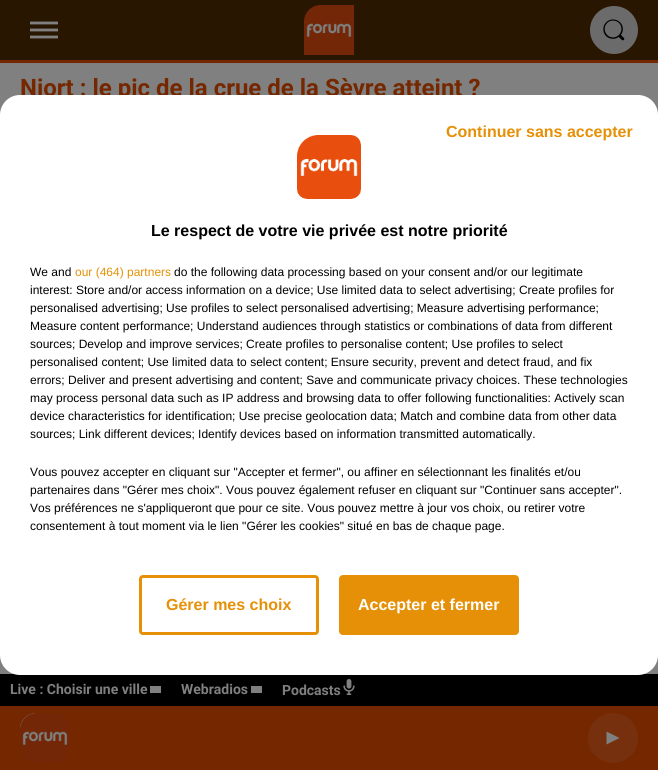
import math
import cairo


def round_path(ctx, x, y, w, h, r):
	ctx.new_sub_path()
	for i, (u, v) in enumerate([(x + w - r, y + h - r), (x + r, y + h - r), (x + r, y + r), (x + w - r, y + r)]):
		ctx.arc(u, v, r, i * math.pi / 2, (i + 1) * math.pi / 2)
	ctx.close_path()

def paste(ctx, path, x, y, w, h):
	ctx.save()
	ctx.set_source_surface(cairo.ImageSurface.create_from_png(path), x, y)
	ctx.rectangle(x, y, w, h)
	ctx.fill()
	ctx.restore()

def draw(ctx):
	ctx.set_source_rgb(0.502, 0.502, 0.502)
	ctx.paint()
	ctx.select_font_face('Roboto', cairo.FONT_SLANT_NORMAL, cairo.FONT_WEIGHT_BOLD)
	ctx.set_font_size(24)
	ctx.set_source_rgb(0.459, 0.153, 0)
	ctx.move_to(20, 96)
	ctx.show_text('Niort : le pic de la crue de la Sèvre atteint ?')
	ctx.set_source_rgb(0.161, 0.086, 0.004)
	ctx.rectangle(0, 0, 658, 60)
	ctx.fill()
	ctx.set_source_rgb(0.459, 0.153, 0)
	ctx.rectangle(0, 60, 658, 3)
	ctx.fill()
	paste(ctx, 'media/1.png', 30, 21, 28, 18)
	paste(ctx, 'media/2.png', 304, 5, 50, 50)
	ctx.set_source_rgb(0.42, 0.42, 0.42)
	ctx.arc(614, 30, 23, 0, 2 * math.pi)
	ctx.fill_preserve()
	ctx.stroke()
	paste(ctx, 'media/3.png', 603, 19, 22, 22)
	ctx.set_source_rgb(0, 0, 0)
	ctx.rectangle(0, 674, 658, 32)
	ctx.fill()
	ctx.set_font_size(14)
	ctx.set_source_rgb(0.502, 0.502, 0.502)
	ctx.move_to(10, 694)
	ctx.show_text('Live : Choisir une ville')
	ctx.rectangle(150, 686, 11, 7)
	ctx.fill()
	ctx.move_to(181, 694)
	ctx.show_text('Webradios')
	ctx.rectangle(251, 686, 11, 7)
	ctx.fill()
	ctx.move_to(282, 695)
	ctx.show_text('Podcasts')
	paste(ctx, 'media/4.png', 343, 679, 12, 16)
	ctx.set_source_rgb(0.459, 0.153, 0)
	ctx.rectangle(0, 706, 658, 64)
	ctx.fill()
	paste(ctx, 'media/5.png', 20, 713, 50, 50)
	ctx.set_source_rgb(0.463, 0.188, 0.051)
	ctx.arc(613, 738, 25, 0, 2 * math.pi)
	ctx.fill()
	ctx.set_source_rgb(0.502, 0.502, 0.502)
	ctx.new_path()
	ctx.move_to(619.5, 738)
	ctx.line_to(606.5, 744.5)
	ctx.line_to(606.5, 731.5)
	ctx.close_path()
	ctx.fill()
	ctx.set_source_rgb(1, 1, 1)
	round_path(ctx, 0, 95, 658, 580, 20)
	ctx.fill()
	ctx.select_font_face('Liberation Sans', cairo.FONT_SLANT_NORMAL, cairo.FONT_WEIGHT_BOLD)
	ctx.set_font_size(16)
	ctx.set_source_rgb(0.898, 0.565, 0.024)
	ctx.move_to(446, 137)
	ctx.show_text('Continuer sans accepter')
	round_path(ctx, 140.5, 576.5, 177, 57, 2.5)
	ctx.set_line_width(3)
	ctx.stroke()
	ctx.move_to(166, 610)
	ctx.show_text('Gérer mes choix')
	round_path(ctx, 340.5, 576.5, 177, 57, 2.5)
	ctx.fill_preserve()
	ctx.stroke()
	ctx.set_source_rgb(1, 1, 1)
	ctx.move_to(358, 610)
	ctx.show_text('Accepter et fermer')
	paste(ctx, 'media/6.png', 297, 135, 64, 64)
	ctx.set_source_rgb(0, 0, 0)
	ctx.move_to(151, 236)
	ctx.show_text('Le respect de votre vie privée est notre priorité')
	ctx.select_font_face('Liberation Sans')
	ctx.set_font_size(12)
	ctx.move_to(30, 276)
	ctx.show_text('We and')
	ctx.set_source_rgb(0.898, 0.565, 0.024)
	ctx.move_to(75, 276)
	ctx.show_text('our (464) partners')
	ctx.set_source_rgb(0, 0, 0)
	for x, y, s in [
		(174, 276, 'do the following data processing based on your consent and/or our legitimate'),
		(30, 294, 'interest: Store and/or access information on a device; Use limited data to select advertising; Create profiles for'),
		(30, 312, 'personalised advertising; Use profiles to select personalised advertising; Measure advertising performance;'),
		(30, 330, 'Measure content performance; Understand audiences through statistics or combinations of data from different'),
		(30, 348, 'sources; Develop and improve services; Create profiles to personalise content; Use profiles to select'),
		(30, 366, 'personalised content; Use limited data to select content; Ensure security, prevent and detect fraud, and fix'),
		(30, 384, 'errors; Deliver and present advertising and content; Save and communicate privacy choices. These technologies'),
		(30, 402, 'may process personal data such as IP address and browsing data to offer following functionalities: Actively scan'),
		(30, 420, 'device characteristics for identification; Use precise geolocation data; Match and combine data from other data'),
		(30, 438, 'sources; Link different devices; Identify devices based on information transmitted automatically.'),
		(30, 476, 'Vous pouvez accepter en cliquant sur "Accepter et fermer", ou affiner en sélectionnant les finalités et/ou'),
		(30, 494, 'partenaires dans "Gérer mes choix". Vous pouvez également refuser en cliquant sur "Continuer sans accepter".'),
		(30, 512, 'Vos préférences ne s\'appliqueront que pour ce site. Vous pouvez mettre à jour vos choix, ou retirer votre'),
		(30, 530, 'consentement à tout moment via le lien "Gérer les cookies" situé en bas de chaque page.'),
	]:
		ctx.move_to(x, y)
		ctx.show_text(s)


surface = cairo.ImageSurface(cairo.FORMAT_RGB24, 658, 770)
ctx = cairo.Context(surface)
options = cairo.FontOptions()
options.set_hint_metrics(cairo.HINT_METRICS_OFF)
options.set_hint_style(cairo.HINT_STYLE_NONE)
ctx.set_font_options(options)
ctx.set_miter_limit(4)
draw(ctx)
surface.write_to_png('image.png')
